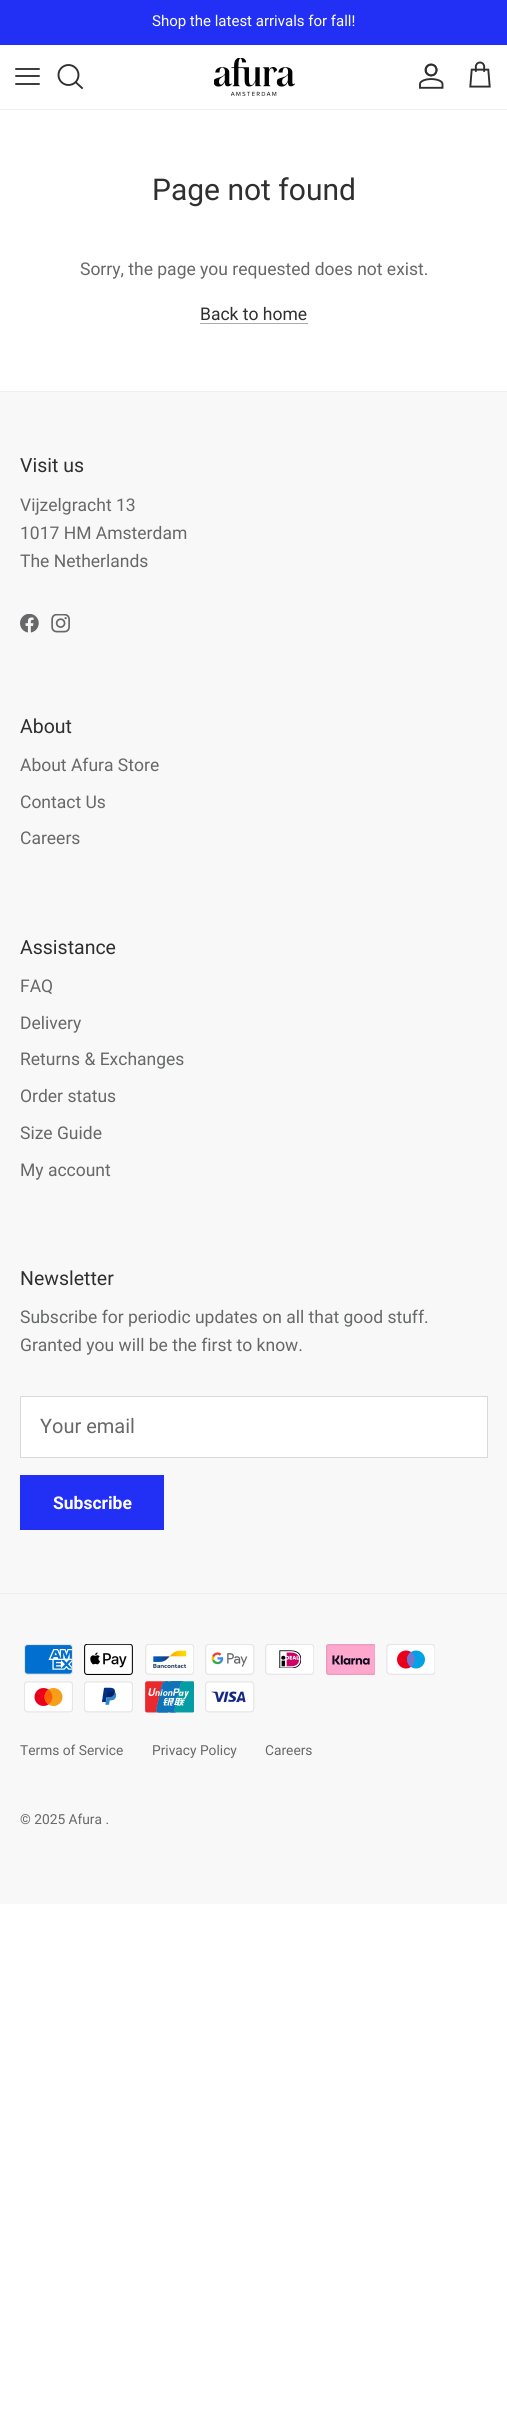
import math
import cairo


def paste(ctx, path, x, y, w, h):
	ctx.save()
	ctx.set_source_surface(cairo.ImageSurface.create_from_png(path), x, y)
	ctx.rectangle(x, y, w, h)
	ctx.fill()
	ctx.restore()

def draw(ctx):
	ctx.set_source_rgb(1, 1, 1)
	ctx.paint()
	ctx.set_source_rgb(0.133, 0.188, 0.961)
	ctx.rectangle(0, 0, 507, 45)
	ctx.fill()
	ctx.select_font_face('Roboto')
	ctx.set_font_size(15)
	ctx.set_source_rgb(1, 1, 1)
	ctx.move_to(152, 26)
	ctx.show_text('Shop the latest arrivals for fall!')
	ctx.set_source_rgb(0.937, 0.937, 0.945)
	ctx.rectangle(0, 109, 507, 1)
	ctx.fill()
	ctx.new_path()
	ctx.move_to(16, 76)
	ctx.line_to(39, 76)
	ctx.move_to(16, 69)
	ctx.line_to(39, 69)
	ctx.move_to(16, 84)
	ctx.line_to(39, 84)
	ctx.set_source_rgb(0.188, 0.18, 0.184)
	ctx.set_line_width(1.9)
	ctx.set_line_cap(cairo.LINE_CAP_ROUND)
	ctx.set_line_join(cairo.LINE_JOIN_ROUND)
	ctx.stroke()
	ctx.arc(68.5, 75, 10, 0, 2 * math.pi)
	ctx.set_line_cap(cairo.LINE_CAP_BUTT)
	ctx.set_line_join(cairo.LINE_JOIN_MITER)
	ctx.stroke()
	ctx.new_path()
	ctx.move_to(76, 82.5)
	ctx.line_to(82, 88)
	ctx.set_line_cap(cairo.LINE_CAP_SQUARE)
	ctx.stroke()
	paste(ctx, 'media/1.png', 214, 58, 81, 38)
	paste(ctx, 'media/2.png', 419, 63, 25, 26)
	paste(ctx, 'media/3.png', 469, 61, 22, 27)
	ctx.set_font_size(30)
	ctx.move_to(152, 200)
	ctx.show_text('Page not found')
	ctx.set_font_size(17.5)
	ctx.set_source_rgb(0.404, 0.408, 0.412)
	ctx.move_to(80, 275)
	ctx.show_text('Sorry, the page you requested does not exist.')
	ctx.set_source_rgb(0.188, 0.18, 0.184)
	ctx.move_to(200, 320)
	ctx.show_text('Back to home')
	ctx.set_source_rgb(0.675, 0.671, 0.675)
	ctx.rectangle(200, 323, 108, 1)
	ctx.fill()
	ctx.set_source_rgb(0.969, 0.969, 0.973)
	ctx.rectangle(0, 392, 507, 1512)
	ctx.fill()
	ctx.set_source_rgb(0.937, 0.937, 0.945)
	ctx.rectangle(0, 391, 507, 1)
	ctx.fill()
	ctx.set_font_size(19.5)
	ctx.set_source_rgb(0.188, 0.18, 0.184)
	ctx.move_to(20, 472)
	ctx.show_text('Visit us')
	ctx.set_font_size(17.5)
	ctx.set_source_rgb(0.404, 0.408, 0.412)
	for x, y, s in [
		(20, 511, 'Vijzelgracht 13'),
		(20, 539, '1017 HM Amsterdam'),
		(20, 567, 'The Netherlands'),
	]:
		ctx.move_to(x, y)
		ctx.show_text(s)
	paste(ctx, 'media/4.png', 20, 614, 19, 19)
	paste(ctx, 'media/5.png', 51, 614, 19, 19)
	ctx.set_font_size(19.5)
	ctx.set_source_rgb(0.188, 0.18, 0.184)
	ctx.move_to(20, 733)
	ctx.show_text('About')
	ctx.set_font_size(17.5)
	ctx.set_source_rgb(0.404, 0.408, 0.412)
	for x, y, s in [
		(20, 771, 'About Afura Store'),
		(20, 808, 'Contact Us'),
		(20, 844, 'Careers'),
	]:
		ctx.move_to(x, y)
		ctx.show_text(s)
	ctx.set_font_size(19.5)
	ctx.set_source_rgb(0.188, 0.18, 0.184)
	ctx.move_to(20, 954)
	ctx.show_text('Assistance')
	ctx.set_font_size(17.5)
	ctx.set_source_rgb(0.404, 0.408, 0.412)
	for x, y, s in [
		(20, 992, 'FAQ'),
		(20, 1029, 'Delivery'),
		(20, 1065, 'Returns & Exchanges'),
		(20, 1102, 'Order status'),
		(20, 1139, 'Size Guide'),
		(20, 1176, 'My account'),
	]:
		ctx.move_to(x, y)
		ctx.show_text(s)
	ctx.set_font_size(19.5)
	ctx.set_source_rgb(0.188, 0.18, 0.184)
	ctx.move_to(20, 1285)
	ctx.show_text('Newsletter')
	ctx.set_font_size(17.5)
	ctx.set_source_rgb(0.404, 0.408, 0.412)
	ctx.move_to(20, 1323)
	ctx.show_text('Subscribe for periodic updates on all that good stuff.')
	ctx.move_to(20, 1351)
	ctx.show_text('Granted you will be the first to know.')
	ctx.set_source_rgb(1, 1, 1)
	ctx.rectangle(20.5, 1396.5, 467, 61)
	ctx.fill_preserve()
	ctx.set_source_rgb(0.851, 0.851, 0.855)
	ctx.set_line_width(1)
	ctx.set_line_cap(cairo.LINE_CAP_BUTT)
	ctx.stroke()
	ctx.set_font_size(20)
	ctx.set_source_rgb(0.404, 0.408, 0.412)
	ctx.move_to(40, 1433)
	ctx.show_text('Your email')
	ctx.set_source_rgb(0.133, 0.188, 0.961)
	ctx.rectangle(20, 1475, 144, 55)
	ctx.fill()
	ctx.select_font_face('Roboto', cairo.FONT_SLANT_NORMAL, cairo.FONT_WEIGHT_BOLD)
	ctx.set_font_size(17.5)
	ctx.set_source_rgb(1, 1, 1)
	ctx.move_to(53, 1509)
	ctx.show_text('Subscribe')
	ctx.set_source_rgb(0.937, 0.937, 0.945)
	ctx.rectangle(0, 1593, 507, 1)
	ctx.fill()
	paste(ctx, 'media/6.png', 24, 1644, 49, 31)
	paste(ctx, 'media/7.png', 84, 1644, 49, 31)
	paste(ctx, 'media/8.png', 145, 1644, 49, 31)
	paste(ctx, 'media/9.png', 205, 1644, 50, 31)
	paste(ctx, 'media/10.png', 265, 1644, 49, 31)
	paste(ctx, 'media/11.png', 326, 1644, 49, 31)
	paste(ctx, 'media/12.png', 386, 1644, 49, 31)
	paste(ctx, 'media/13.png', 24, 1681, 49, 32)
	paste(ctx, 'media/14.png', 84, 1681, 49, 32)
	paste(ctx, 'media/15.png', 145, 1681, 49, 32)
	paste(ctx, 'media/16.png', 205, 1681, 50, 32)
	ctx.select_font_face('Roboto')
	ctx.set_font_size(13.75)
	ctx.set_source_rgb(0.404, 0.408, 0.412)
	for x, y, s in [
		(20, 1755, 'Terms of Service'),
		(152, 1755, 'Privacy Policy'),
		(265, 1755, 'Careers'),
		(20, 1824, '© 2025 Afura .'),
	]:
		ctx.move_to(x, y)
		ctx.show_text(s)


surface = cairo.ImageSurface(cairo.FORMAT_RGB24, 507, 2430)
ctx = cairo.Context(surface)
options = cairo.FontOptions()
options.set_hint_metrics(cairo.HINT_METRICS_OFF)
options.set_hint_style(cairo.HINT_STYLE_NONE)
ctx.set_font_options(options)
ctx.set_miter_limit(4)
draw(ctx)
surface.write_to_png('image.png')
